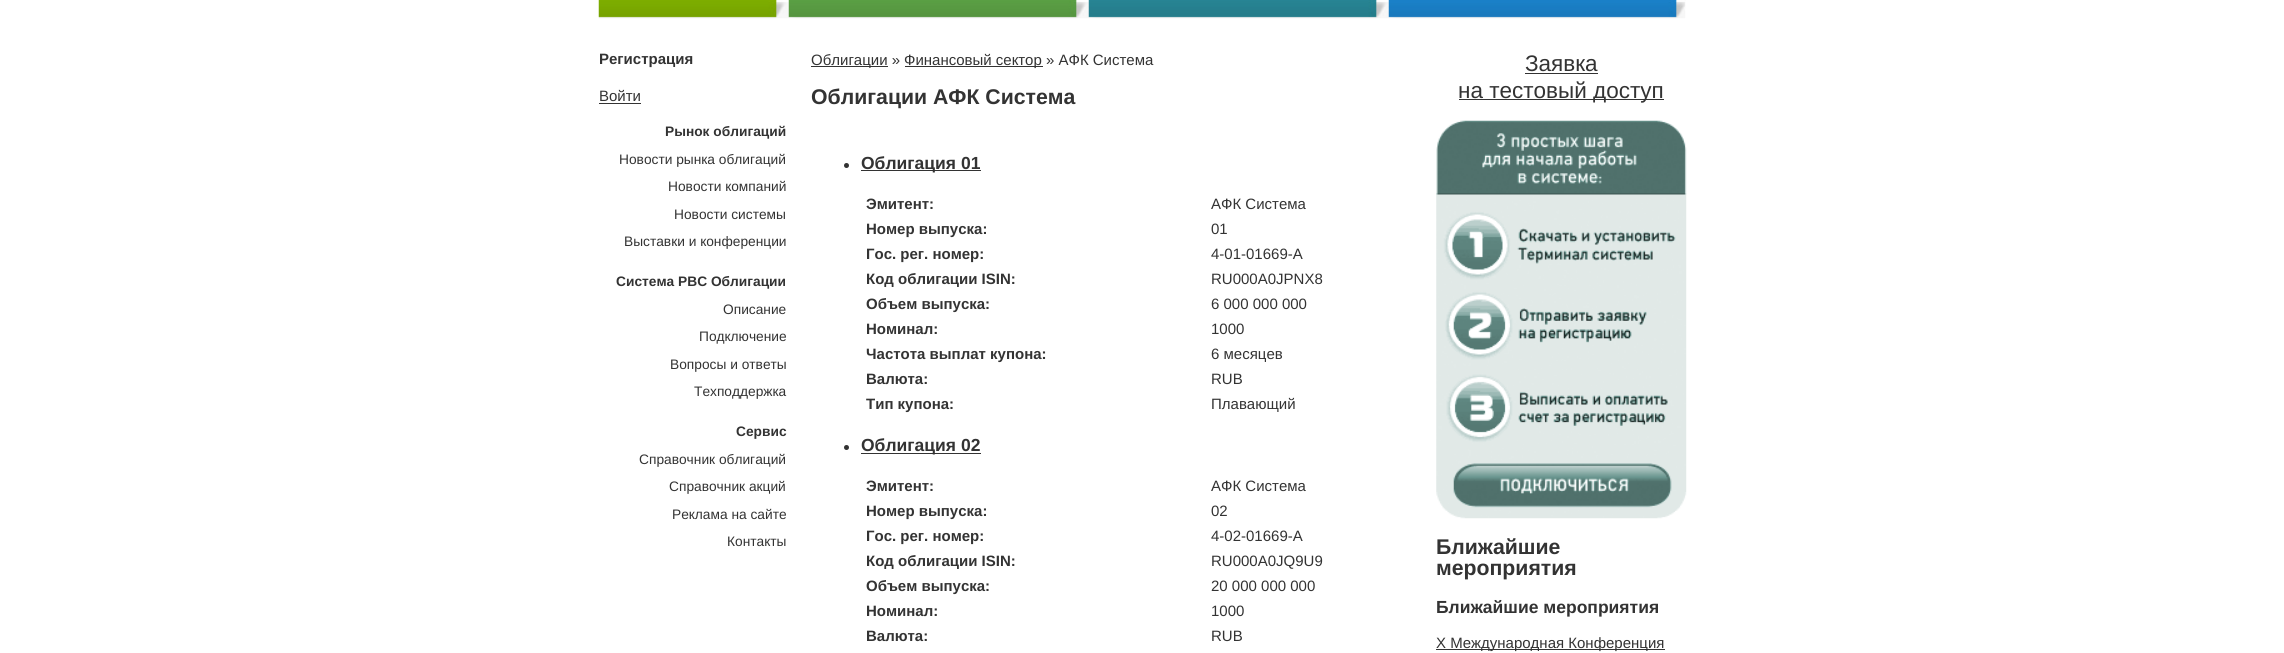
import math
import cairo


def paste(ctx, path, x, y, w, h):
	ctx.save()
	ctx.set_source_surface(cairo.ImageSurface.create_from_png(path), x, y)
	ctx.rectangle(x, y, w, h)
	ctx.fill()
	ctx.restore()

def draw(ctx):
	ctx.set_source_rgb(1, 1, 1)
	ctx.paint()
	paste(ctx, 'media/1.png', 598, 0, 1088, 19)
	ctx.select_font_face('Liberation Sans', cairo.FONT_SLANT_NORMAL, cairo.FONT_WEIGHT_BOLD)
	ctx.set_font_size(15)
	ctx.set_source_rgb(0.2, 0.2, 0.2)
	ctx.move_to(599, 64)
	ctx.show_text('Регистрация')
	ctx.select_font_face('Liberation Sans')
	ctx.move_to(599, 101)
	ctx.show_text('Войти')
	ctx.rectangle(599, 103, 42, 1)
	ctx.fill()
	ctx.select_font_face('Liberation Sans', cairo.FONT_SLANT_NORMAL, cairo.FONT_WEIGHT_BOLD)
	ctx.set_font_size(13.75)
	ctx.move_to(665, 136)
	ctx.show_text('Рынок облигаций')
	ctx.select_font_face('Liberation Sans')
	for x, y, s in [
		(619, 164, 'Новости рынка облигаций'),
		(668, 191, 'Новости компаний'),
		(674, 219, 'Новости системы'),
		(624, 246, 'Выставки и конференции'),
	]:
		ctx.move_to(x, y)
		ctx.show_text(s)
	ctx.select_font_face('Liberation Sans', cairo.FONT_SLANT_NORMAL, cairo.FONT_WEIGHT_BOLD)
	ctx.move_to(616, 286)
	ctx.show_text('Система РВС Облигации')
	ctx.select_font_face('Liberation Sans')
	for x, y, s in [
		(723, 314, 'Описание'),
		(699, 341, 'Подключение'),
		(670, 369, 'Вопросы и ответы'),
		(694, 396, 'Техподдержка'),
	]:
		ctx.move_to(x, y)
		ctx.show_text(s)
	ctx.select_font_face('Liberation Sans', cairo.FONT_SLANT_NORMAL, cairo.FONT_WEIGHT_BOLD)
	ctx.move_to(736, 436)
	ctx.show_text('Сервис')
	ctx.select_font_face('Liberation Sans')
	for x, y, s in [
		(639, 464, 'Справочник облигаций'),
		(669, 491, 'Справочник акций'),
		(672, 519, 'Реклама на сайте'),
		(727, 546, 'Контакты'),
	]:
		ctx.move_to(x, y)
		ctx.show_text(s)
	ctx.rectangle(811, 66, 77, 1)
	ctx.fill()
	ctx.set_font_size(15)
	ctx.move_to(811, 65)
	ctx.show_text('Облигации »')
	ctx.rectangle(905, 66, 138, 1)
	ctx.fill()
	ctx.move_to(904, 65)
	ctx.show_text('Финансовый сектор » АФК Система')
	ctx.select_font_face('Liberation Sans', cairo.FONT_SLANT_NORMAL, cairo.FONT_WEIGHT_BOLD)
	ctx.set_font_size(21.25)
	ctx.move_to(811, 104)
	ctx.show_text('Облигации АФК Система')
	ctx.new_path()
	ctx.arc(846.5, 165.5, 2.5, 0, 2 * math.pi)
	ctx.fill()
	ctx.rectangle(861, 170, 120, 1)
	ctx.fill()
	ctx.set_font_size(17.5)
	ctx.move_to(861, 169)
	ctx.show_text('Облигация 01')
	ctx.set_font_size(15)
	ctx.move_to(866, 209)
	ctx.show_text('Эмитент:')
	ctx.select_font_face('Liberation Sans')
	ctx.move_to(1211, 209)
	ctx.show_text('АФК Система')
	ctx.select_font_face('Liberation Sans', cairo.FONT_SLANT_NORMAL, cairo.FONT_WEIGHT_BOLD)
	ctx.move_to(866, 234)
	ctx.show_text('Номер выпуска:')
	ctx.select_font_face('Liberation Sans')
	ctx.move_to(1211, 234)
	ctx.show_text('01')
	ctx.select_font_face('Liberation Sans', cairo.FONT_SLANT_NORMAL, cairo.FONT_WEIGHT_BOLD)
	ctx.move_to(866, 259)
	ctx.show_text('Гос. рег. номер:')
	ctx.select_font_face('Liberation Sans')
	ctx.move_to(1211, 259)
	ctx.show_text('4-01-01669-А')
	ctx.select_font_face('Liberation Sans', cairo.FONT_SLANT_NORMAL, cairo.FONT_WEIGHT_BOLD)
	ctx.move_to(866, 284)
	ctx.show_text('Код облигации ISIN:')
	ctx.select_font_face('Liberation Sans')
	ctx.move_to(1211, 284)
	ctx.show_text('RU000A0JPNX8')
	ctx.select_font_face('Liberation Sans', cairo.FONT_SLANT_NORMAL, cairo.FONT_WEIGHT_BOLD)
	ctx.move_to(866, 309)
	ctx.show_text('Объем выпуска:')
	ctx.select_font_face('Liberation Sans')
	ctx.move_to(1211, 309)
	ctx.show_text('6 000 000 000')
	ctx.select_font_face('Liberation Sans', cairo.FONT_SLANT_NORMAL, cairo.FONT_WEIGHT_BOLD)
	ctx.move_to(866, 334)
	ctx.show_text('Номинал:')
	ctx.select_font_face('Liberation Sans')
	ctx.move_to(1211, 334)
	ctx.show_text('1000')
	ctx.select_font_face('Liberation Sans', cairo.FONT_SLANT_NORMAL, cairo.FONT_WEIGHT_BOLD)
	ctx.move_to(866, 359)
	ctx.show_text('Частота выплат купона:')
	ctx.select_font_face('Liberation Sans')
	ctx.move_to(1211, 359)
	ctx.show_text('6 месяцев')
	ctx.select_font_face('Liberation Sans', cairo.FONT_SLANT_NORMAL, cairo.FONT_WEIGHT_BOLD)
	ctx.move_to(866, 384)
	ctx.show_text('Валюта:')
	ctx.select_font_face('Liberation Sans')
	ctx.move_to(1211, 384)
	ctx.show_text('RUB')
	ctx.select_font_face('Liberation Sans', cairo.FONT_SLANT_NORMAL, cairo.FONT_WEIGHT_BOLD)
	ctx.move_to(866, 409)
	ctx.show_text('Тип купона:')
	ctx.select_font_face('Liberation Sans')
	ctx.move_to(1211, 409)
	ctx.show_text('Плавающий')
	ctx.new_path()
	ctx.arc(846.5, 447.5, 2.5, 0, 2 * math.pi)
	ctx.fill()
	ctx.rectangle(861, 453, 120, 1)
	ctx.fill()
	ctx.select_font_face('Liberation Sans', cairo.FONT_SLANT_NORMAL, cairo.FONT_WEIGHT_BOLD)
	ctx.set_font_size(17.5)
	ctx.move_to(861, 451)
	ctx.show_text('Облигация 02')
	ctx.set_font_size(15)
	ctx.move_to(866, 491)
	ctx.show_text('Эмитент:')
	ctx.select_font_face('Liberation Sans')
	ctx.move_to(1211, 491)
	ctx.show_text('АФК Система')
	ctx.select_font_face('Liberation Sans', cairo.FONT_SLANT_NORMAL, cairo.FONT_WEIGHT_BOLD)
	ctx.move_to(866, 516)
	ctx.show_text('Номер выпуска:')
	ctx.select_font_face('Liberation Sans')
	ctx.move_to(1211, 516)
	ctx.show_text('02')
	ctx.select_font_face('Liberation Sans', cairo.FONT_SLANT_NORMAL, cairo.FONT_WEIGHT_BOLD)
	ctx.move_to(866, 541)
	ctx.show_text('Гос. рег. номер:')
	ctx.select_font_face('Liberation Sans')
	ctx.move_to(1211, 541)
	ctx.show_text('4-02-01669-A')
	ctx.select_font_face('Liberation Sans', cairo.FONT_SLANT_NORMAL, cairo.FONT_WEIGHT_BOLD)
	ctx.move_to(866, 566)
	ctx.show_text('Код облигации ISIN:')
	ctx.select_font_face('Liberation Sans')
	ctx.move_to(1211, 566)
	ctx.show_text('RU000A0JQ9U9')
	ctx.select_font_face('Liberation Sans', cairo.FONT_SLANT_NORMAL, cairo.FONT_WEIGHT_BOLD)
	ctx.move_to(866, 591)
	ctx.show_text('Объем выпуска:')
	ctx.select_font_face('Liberation Sans')
	ctx.move_to(1211, 591)
	ctx.show_text('20 000 000 000')
	ctx.select_font_face('Liberation Sans', cairo.FONT_SLANT_NORMAL, cairo.FONT_WEIGHT_BOLD)
	ctx.move_to(866, 616)
	ctx.show_text('Номинал:')
	ctx.select_font_face('Liberation Sans')
	ctx.move_to(1211, 616)
	ctx.show_text('1000')
	ctx.select_font_face('Liberation Sans', cairo.FONT_SLANT_NORMAL, cairo.FONT_WEIGHT_BOLD)
	ctx.move_to(866, 641)
	ctx.show_text('Валюта:')
	ctx.select_font_face('Liberation Sans')
	ctx.move_to(1211, 641)
	ctx.show_text('RUB')
	ctx.set_font_size(22.5)
	ctx.move_to(1525, 71)
	ctx.show_text('Заявка')
	ctx.rectangle(1525, 73, 73, 1)
	ctx.fill()
	ctx.rectangle(1459, 99, 205, 1)
	ctx.fill()
	ctx.move_to(1458, 98)
	ctx.show_text('на тестовый доступ')
	paste(ctx, 'media/2.png', 1436, 120, 251, 399)
	ctx.select_font_face('Liberation Sans', cairo.FONT_SLANT_NORMAL, cairo.FONT_WEIGHT_BOLD)
	ctx.set_font_size(21.25)
	ctx.move_to(1436, 554)
	ctx.show_text('Ближайшие')
	ctx.move_to(1436, 575)
	ctx.show_text('мероприятия')
	ctx.set_font_size(17.5)
	ctx.move_to(1436, 613)
	ctx.show_text('Ближайшие мероприятия')
	ctx.rectangle(1436, 649, 229, 1)
	ctx.fill()
	ctx.select_font_face('Liberation Sans')
	ctx.set_font_size(15)
	ctx.move_to(1436, 648)
	ctx.show_text('X Международная Конференция')


surface = cairo.ImageSurface(cairo.FORMAT_RGB24, 2284, 653)
ctx = cairo.Context(surface)
options = cairo.FontOptions()
options.set_hint_metrics(cairo.HINT_METRICS_OFF)
options.set_hint_style(cairo.HINT_STYLE_NONE)
ctx.set_font_options(options)
ctx.set_miter_limit(4)
draw(ctx)
surface.write_to_png('image.png')
